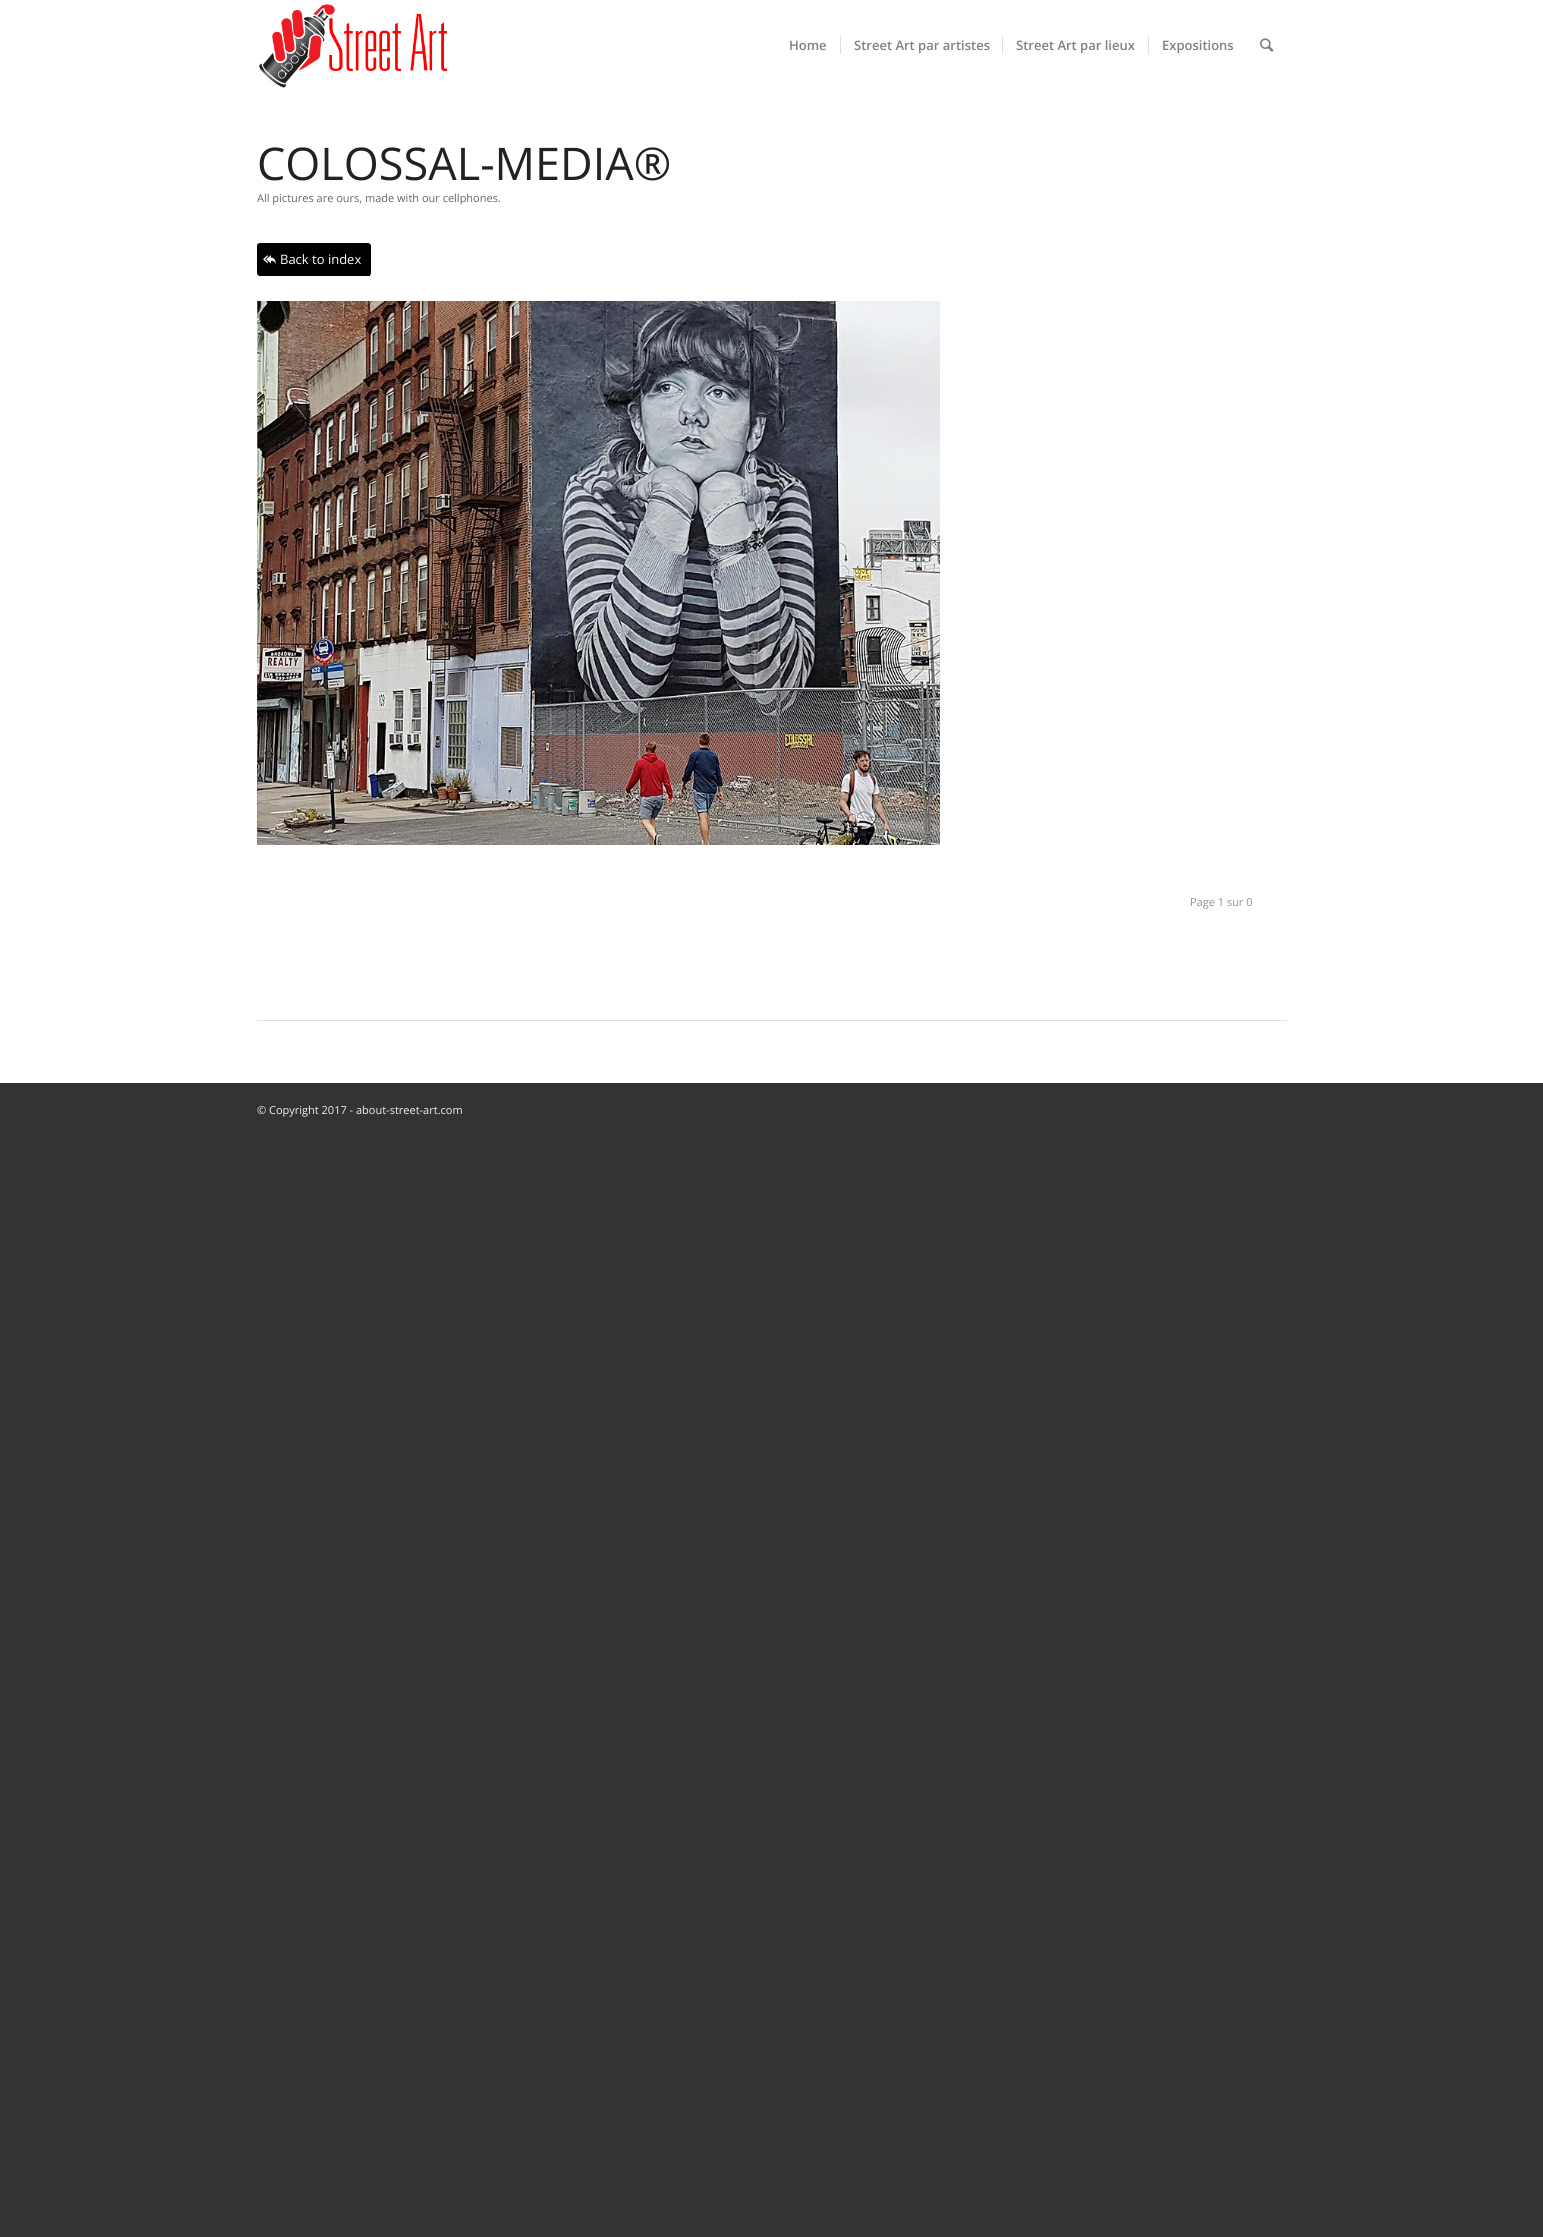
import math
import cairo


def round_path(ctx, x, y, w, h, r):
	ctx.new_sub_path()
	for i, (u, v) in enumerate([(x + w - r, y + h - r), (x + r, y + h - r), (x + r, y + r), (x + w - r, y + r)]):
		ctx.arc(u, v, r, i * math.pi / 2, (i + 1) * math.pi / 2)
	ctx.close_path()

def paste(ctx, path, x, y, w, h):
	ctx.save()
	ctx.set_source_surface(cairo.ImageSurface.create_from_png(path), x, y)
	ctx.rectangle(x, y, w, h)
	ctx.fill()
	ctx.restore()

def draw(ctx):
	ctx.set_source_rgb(0.2, 0.2, 0.2)
	ctx.paint()
	ctx.set_source_rgb(1, 1, 1)
	ctx.rectangle(0, 0, 1543, 1083)
	ctx.fill()
	paste(ctx, 'media/1.png', 259, 4, 189, 84)
	ctx.select_font_face('Open Sans SemiBold')
	ctx.set_font_size(13)
	ctx.set_source_rgb(0.502, 0.502, 0.502)
	ctx.move_to(789, 50)
	ctx.show_text('Home')
	ctx.move_to(854, 50)
	ctx.show_text('Street Art par artistes')
	ctx.set_source_rgb(0.882, 0.882, 0.882)
	ctx.rectangle(840, 36, 1, 18)
	ctx.fill()
	ctx.set_source_rgb(0.502, 0.502, 0.502)
	ctx.move_to(1016, 50)
	ctx.show_text('Street Art par lieux')
	ctx.set_source_rgb(0.882, 0.882, 0.882)
	ctx.rectangle(1002, 36, 1, 18)
	ctx.fill()
	ctx.set_source_rgb(0.502, 0.502, 0.502)
	ctx.move_to(1162, 50)
	ctx.show_text('Expositions')
	ctx.set_source_rgb(0.882, 0.882, 0.882)
	ctx.rectangle(1148, 36, 1, 18)
	ctx.fill()
	paste(ctx, 'media/2.png', 1260, 38, 14, 14)
	ctx.select_font_face('Open Sans')
	ctx.set_font_size(45)
	ctx.set_source_rgb(0.133, 0.133, 0.133)
	ctx.move_to(257, 180)
	ctx.show_text('COLOSSAL-MEDIA®')
	ctx.set_font_size(11)
	ctx.set_source_rgb(0.4, 0.4, 0.4)
	ctx.move_to(257, 202)
	ctx.show_text('All pictures are ours, made with our cellphones.')
	ctx.set_source_rgb(0, 0, 0)
	round_path(ctx, 257, 243, 114, 33, 3)
	ctx.fill()
	ctx.rectangle(259, 275, 111, 1)
	ctx.fill()
	paste(ctx, 'media/3.png', 263, 255, 13, 9)
	ctx.set_font_size(13)
	ctx.set_source_rgb(1, 1, 1)
	ctx.move_to(280, 264)
	ctx.show_text('Back to index')
	paste(ctx, 'media/4.png', 257, 301, 683, 544)
	ctx.set_font_size(11)
	ctx.set_source_rgb(0.569, 0.569, 0.569)
	ctx.move_to(1190, 906)
	ctx.show_text('Page 1 sur 0')
	ctx.set_source_rgb(0.882, 0.882, 0.882)
	ctx.rectangle(257, 1020, 1030, 1)
	ctx.fill()
	ctx.set_source_rgb(0.933, 0.933, 0.933)
	ctx.move_to(257, 1114)
	ctx.show_text('© Copyright 2017 - about-street-art.com')


surface = cairo.ImageSurface(cairo.FORMAT_RGB24, 1543, 2237)
ctx = cairo.Context(surface)
options = cairo.FontOptions()
options.set_hint_metrics(cairo.HINT_METRICS_OFF)
options.set_hint_style(cairo.HINT_STYLE_NONE)
ctx.set_font_options(options)
ctx.set_miter_limit(4)
draw(ctx)
surface.write_to_png('image.png')
